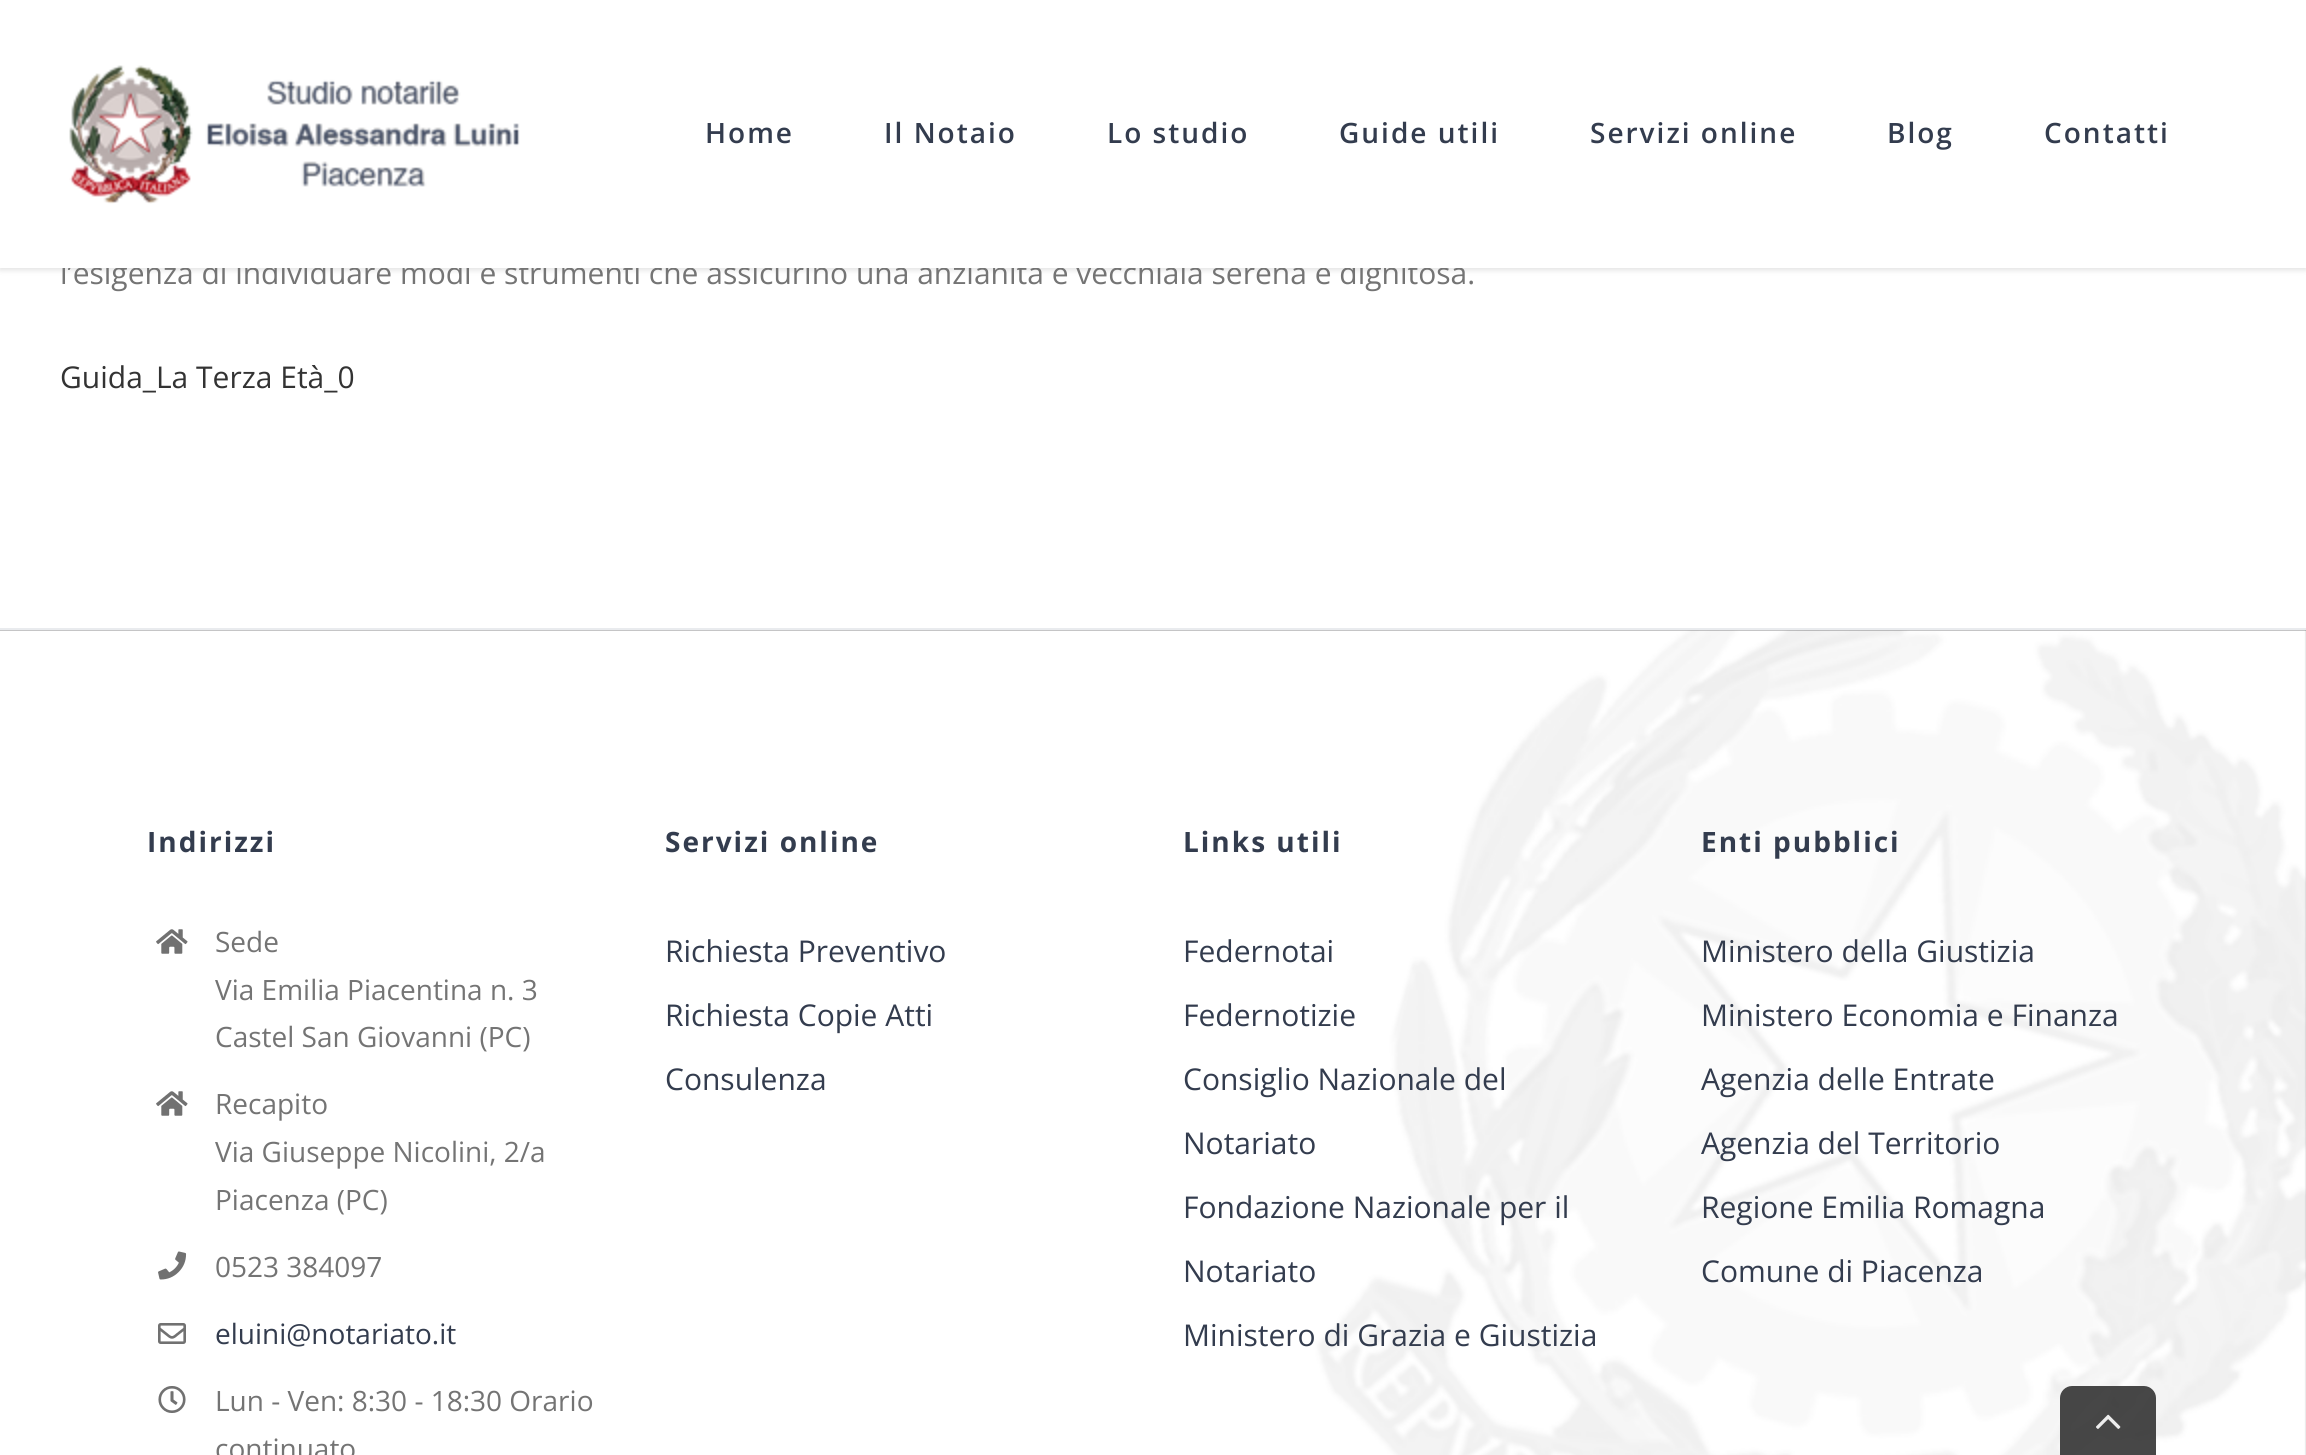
import math
import cairo


def write_spaced(ctx, x, y, s, letter, word):
	ctx.move_to(x, y)
	for ch in s:
		ctx.show_text(ch)
		ctx.rel_move_to(letter + word * (ch == ' '), 0)

def round_path(ctx, x, y, w, h, r):
	ctx.new_sub_path()
	for i, (u, v) in enumerate([(x + w - r, y + h - r), (x + r, y + h - r), (x + r, y + r), (x + w - r, y + r)]):
		ctx.arc(u, v, r, i * math.pi / 2, (i + 1) * math.pi / 2)
	ctx.close_path()

def blur_box(ctx, x, y, w, h, r, blur, alpha):
	ctx.push_group_with_content(cairo.CONTENT_ALPHA)
	ctx.set_operator(cairo.OPERATOR_SOURCE)
	for i in range(15, -16, -2):
		e = blur * i / 6
		if min(w, h) + 2 * e > 0:
			ctx.set_source_rgba(0, 0, 0, alpha * math.erfc((i - 1) / 8.5) / 2)
			round_path(ctx, x - e, y - e, w + 2 * e, h + 2 * e, max(0, min(r + e + blur * .6, min(w, h) / 2 + e)))
			ctx.fill()
	ctx.mask(ctx.pop_group())

def paste(ctx, path, x, y, w, h):
	ctx.save()
	ctx.set_source_surface(cairo.ImageSurface.create_from_png(path), x, y)
	ctx.rectangle(x, y, w, h)
	ctx.fill()
	ctx.restore()

def draw(ctx):
	ctx.set_source_rgb(1, 1, 1)
	ctx.paint()
	ctx.set_source_rgb(0, 0, 0)
	blur_box(ctx, 0, 2, 2306, 268, 0, 3, 0.12)
	ctx.select_font_face('Open Sans')
	ctx.set_font_size(30)
	ctx.set_source_rgb(0.455, 0.455, 0.455)
	ctx.move_to(60, 284)
	ctx.show_text('l’esigenza di individuare modi e strumenti che assicurino una anzianità e vecchiaia serena e dignitosa.')
	ctx.set_source_rgb(1, 1, 1)
	ctx.rectangle(0, 0, 2306, 268)
	ctx.fill()
	paste(ctx, 'media/1.png', 69, 65, 451, 139)
	ctx.select_font_face('Open Sans SemiBold')
	ctx.set_font_size(28)
	ctx.set_source_rgb(0.2, 0.235, 0.306)
	for x, y, s in [
		(705, 143, 'Home'),
		(884, 143, 'Il Notaio'),
		(1107, 143, 'Lo studio'),
		(1339, 143, 'Guide utili'),
		(1590, 143, 'Servizi online'),
		(1887, 143, 'Blog'),
		(2044, 143, 'Contatti'),
	]:
		write_spaced(ctx, x, y, s, 2, 0)
	ctx.select_font_face('Open Sans')
	ctx.set_font_size(30)
	ctx.set_source_rgb(0.2, 0.2, 0.2)
	ctx.move_to(60, 388)
	ctx.show_text('Guida_La Terza Età_0')
	ctx.set_source_rgb(0.212, 0.22, 0.224)
	ctx.rectangle(0, 630, 2306, 825)
	ctx.fill()
	paste(ctx, 'media/2.png', 0, 630, 2306, 825)
	ctx.set_source_rgb(0.914, 0.918, 0.933)
	ctx.rectangle(0, 628, 2306, 2)
	ctx.fill()
	ctx.select_font_face('Open Sans', cairo.FONT_SLANT_NORMAL, cairo.FONT_WEIGHT_BOLD)
	ctx.set_font_size(28)
	ctx.set_source_rgb(0.2, 0.235, 0.306)
	write_spaced(ctx, 147, 852, 'Indirizzi', 2, 0)
	paste(ctx, 'media/3.png', 156, 929, 32, 25)
	ctx.select_font_face('Open Sans')
	ctx.set_source_rgb(0.455, 0.455, 0.455)
	for x, y, s in [
		(215, 952, 'Sede'),
		(215, 1000, 'Via Emilia Piacentina n. 3'),
		(215, 1047, 'Castel San Giovanni (PC)'),
	]:
		ctx.move_to(x, y)
		ctx.show_text(s)
	paste(ctx, 'media/3.png', 156, 1091, 32, 25)
	for x, y, s in [
		(215, 1114, 'Recapito'),
		(215, 1162, 'Via Giuseppe Nicolini, 2/a'),
		(215, 1210, 'Piacenza (PC)'),
	]:
		ctx.move_to(x, y)
		ctx.show_text(s)
	paste(ctx, 'media/4.png', 158, 1251, 29, 29)
	ctx.move_to(215, 1277)
	ctx.show_text('0523 384097')
	paste(ctx, 'media/5.png', 158, 1323, 28, 21)
	ctx.set_source_rgb(0.2, 0.235, 0.306)
	ctx.move_to(215, 1344)
	ctx.show_text('eluini@notariato.it')
	paste(ctx, 'media/6.png', 158, 1386, 28, 27)
	ctx.set_source_rgb(0.455, 0.455, 0.455)
	ctx.move_to(215, 1411)
	ctx.show_text('Lun - Ven: 8:30 - 18:30 Orario')
	ctx.move_to(215, 1459)
	ctx.show_text('continuato')
	ctx.select_font_face('Open Sans', cairo.FONT_SLANT_NORMAL, cairo.FONT_WEIGHT_BOLD)
	ctx.set_source_rgb(0.2, 0.235, 0.306)
	write_spaced(ctx, 665, 852, 'Servizi online', 2, 0)
	ctx.select_font_face('Open Sans')
	ctx.set_font_size(30)
	for x, y, s in [
		(665, 962, 'Richiesta Preventivo'),
		(665, 1026, 'Richiesta Copie Atti'),
		(665, 1090, 'Consulenza'),
	]:
		ctx.move_to(x, y)
		ctx.show_text(s)
	ctx.select_font_face('Open Sans', cairo.FONT_SLANT_NORMAL, cairo.FONT_WEIGHT_BOLD)
	ctx.set_font_size(28)
	write_spaced(ctx, 1183, 852, 'Links utili', 2, 0)
	ctx.select_font_face('Open Sans')
	ctx.set_font_size(30)
	for x, y, s in [
		(1183, 962, 'Federnotai'),
		(1183, 1026, 'Federnotizie'),
		(1183, 1090, 'Consiglio Nazionale del'),
		(1183, 1154, 'Notariato'),
		(1183, 1218, 'Fondazione Nazionale per il'),
		(1183, 1282, 'Notariato'),
		(1183, 1346, 'Ministero di Grazia e Giustizia'),
	]:
		ctx.move_to(x, y)
		ctx.show_text(s)
	ctx.select_font_face('Open Sans', cairo.FONT_SLANT_NORMAL, cairo.FONT_WEIGHT_BOLD)
	ctx.set_font_size(28)
	write_spaced(ctx, 1701, 852, 'Enti pubblici', 2, 0)
	ctx.select_font_face('Open Sans')
	ctx.set_font_size(30)
	for x, y, s in [
		(1701, 962, 'Ministero della Giustizia'),
		(1701, 1026, 'Ministero Economia e Finanza'),
		(1701, 1090, 'Agenzia delle Entrate'),
		(1701, 1154, 'Agenzia del Territorio'),
		(1701, 1218, 'Regione Emilia Romagna'),
		(1701, 1282, 'Comune di Piacenza'),
	]:
		ctx.move_to(x, y)
		ctx.show_text(s)
	ctx.set_source_rgba(0.2, 0.2, 0.2, 0.9)
	ctx.new_path()
	ctx.move_to(2072, 1386)
	ctx.line_to(2144, 1386)
	ctx.curve_to(2150.5, 1386, 2156, 1391.5, 2156, 1398)
	ctx.line_to(2156, 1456)
	ctx.line_to(2060, 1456)
	ctx.line_to(2060, 1398)
	ctx.curve_to(2060, 1391.5, 2065.5, 1386, 2072, 1386)
	ctx.close_path()
	ctx.fill()
	paste(ctx, 'media/7.png', 2096, 1414, 25, 15)


surface = cairo.ImageSurface(cairo.FORMAT_RGB24, 2306, 1455)
ctx = cairo.Context(surface)
options = cairo.FontOptions()
options.set_hint_metrics(cairo.HINT_METRICS_OFF)
options.set_hint_style(cairo.HINT_STYLE_NONE)
ctx.set_font_options(options)
ctx.set_miter_limit(4)
draw(ctx)
surface.write_to_png('image.png')
